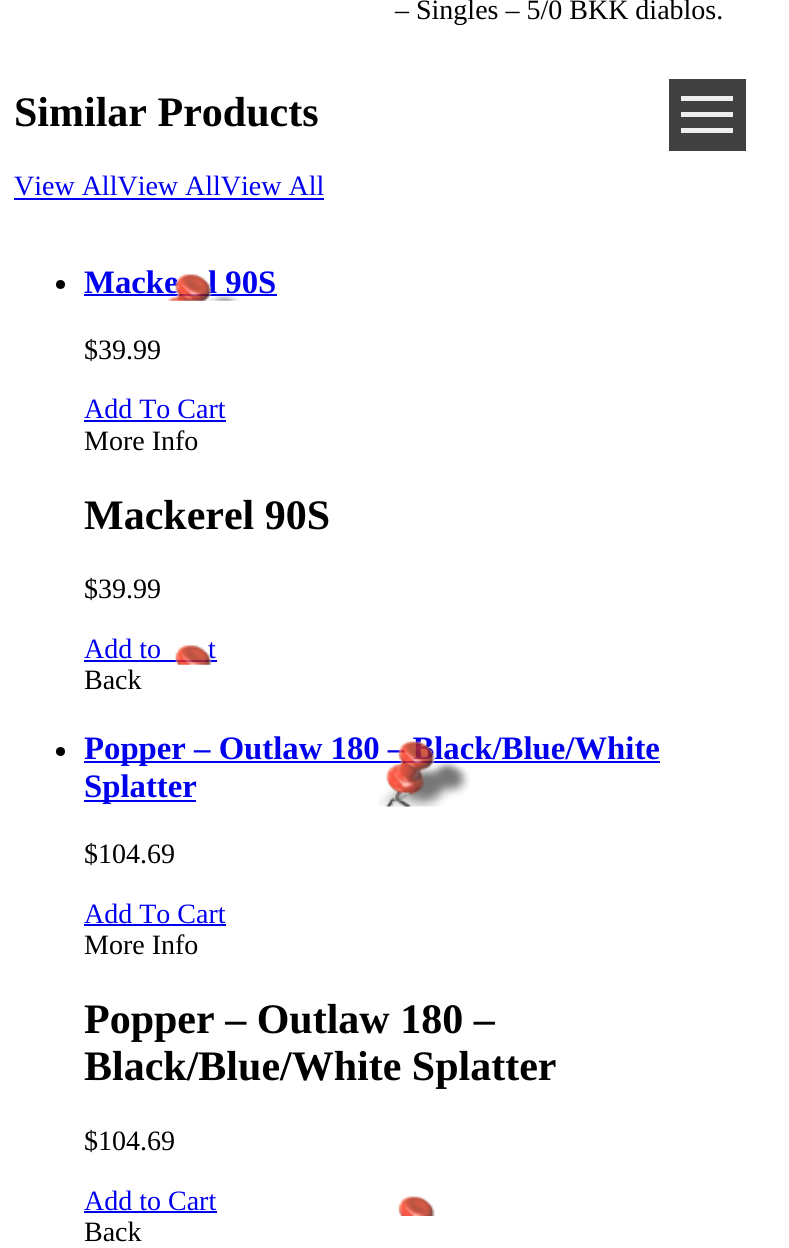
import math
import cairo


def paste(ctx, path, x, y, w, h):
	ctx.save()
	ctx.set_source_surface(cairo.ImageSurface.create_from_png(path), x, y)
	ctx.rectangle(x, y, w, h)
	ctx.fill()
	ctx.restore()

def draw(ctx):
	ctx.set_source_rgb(1, 1, 1)
	ctx.paint()
	ctx.select_font_face('Liberation Serif')
	ctx.set_font_size(28)
	ctx.set_source_rgb(0, 0, 0)
	ctx.move_to(395, 19)
	ctx.show_text('– Singles – 5/0 BKK diablos.')
	ctx.select_font_face('Liberation Serif', cairo.FONT_SLANT_NORMAL, cairo.FONT_WEIGHT_BOLD)
	ctx.set_font_size(42)
	ctx.move_to(14, 126)
	ctx.show_text('Similar Products')
	ctx.select_font_face('Liberation Serif')
	ctx.set_font_size(28)
	ctx.set_source_rgb(0, 0, 0.933)
	ctx.move_to(14, 195)
	ctx.show_text('View AllView AllView All')
	ctx.rectangle(14, 198, 310, 2)
	ctx.fill()
	ctx.set_source_rgb(0, 0, 0)
	ctx.arc(60.5, 284.5, 4.5, 0, 2 * math.pi)
	ctx.fill()
	ctx.select_font_face('Liberation Serif', cairo.FONT_SLANT_NORMAL, cairo.FONT_WEIGHT_BOLD)
	ctx.set_font_size(32.75)
	ctx.set_source_rgb(0, 0, 0.933)
	ctx.move_to(84, 293)
	ctx.show_text('Macke')
	ctx.rectangle(84, 294, 193, 2)
	ctx.fill()
	ctx.move_to(208, 293)
	ctx.show_text('l 90S')
	paste(ctx, 'media/1.png', 167, 274, 73, 27)
	ctx.select_font_face('Liberation Serif')
	ctx.set_font_size(28)
	ctx.set_source_rgb(0, 0, 0)
	ctx.move_to(84, 359)
	ctx.show_text('$39.99')
	ctx.set_source_rgb(0, 0, 0.933)
	ctx.move_to(84, 418)
	ctx.show_text('Add To Cart')
	ctx.rectangle(84, 420, 142, 2)
	ctx.fill()
	ctx.set_source_rgb(0, 0, 0)
	ctx.move_to(84, 450)
	ctx.show_text('More Info')
	ctx.select_font_face('Liberation Serif', cairo.FONT_SLANT_NORMAL, cairo.FONT_WEIGHT_BOLD)
	ctx.set_font_size(42)
	ctx.move_to(84, 529)
	ctx.show_text('Mackerel 90S')
	ctx.select_font_face('Liberation Serif')
	ctx.set_font_size(28)
	ctx.move_to(84, 598)
	ctx.show_text('$39.99')
	ctx.set_source_rgb(0, 0, 0.933)
	ctx.move_to(84, 658)
	ctx.show_text('Add to')
	ctx.move_to(208, 658)
	ctx.show_text('t')
	ctx.rectangle(84, 660, 133, 2)
	ctx.fill()
	paste(ctx, 'media/2.png', 175, 645, 37, 20)
	ctx.set_source_rgb(0, 0, 0)
	ctx.move_to(84, 689)
	ctx.show_text('Back')
	ctx.new_path()
	ctx.arc(60.5, 751.5, 4.5, 0, 2 * math.pi)
	ctx.fill()
	ctx.set_source_rgb(0, 0, 0.933)
	ctx.rectangle(84, 761, 576, 2)
	ctx.fill()
	ctx.select_font_face('Liberation Serif', cairo.FONT_SLANT_NORMAL, cairo.FONT_WEIGHT_BOLD)
	ctx.set_font_size(32.75)
	ctx.move_to(84, 759)
	ctx.show_text('Popper – Outlaw 180 – Black/Blue/White')
	ctx.rectangle(84, 800, 112, 2)
	ctx.fill()
	ctx.move_to(84, 797)
	ctx.show_text('Splatter')
	paste(ctx, 'media/3.png', 378, 741, 92, 66)
	ctx.select_font_face('Liberation Serif')
	ctx.set_font_size(28)
	ctx.set_source_rgb(0, 0, 0)
	ctx.move_to(84, 863)
	ctx.show_text('$104.69')
	ctx.set_source_rgb(0, 0, 0.933)
	ctx.move_to(84, 923)
	ctx.show_text('Add To Cart')
	ctx.rectangle(84, 924, 142, 2)
	ctx.fill()
	ctx.set_source_rgb(0, 0, 0)
	ctx.move_to(84, 954)
	ctx.show_text('More Info')
	ctx.select_font_face('Liberation Serif', cairo.FONT_SLANT_NORMAL, cairo.FONT_WEIGHT_BOLD)
	ctx.set_font_size(42)
	ctx.move_to(84, 1033)
	ctx.show_text('Popper – Outlaw 180 –')
	ctx.move_to(84, 1080)
	ctx.show_text('Black/Blue/White Splatter')
	ctx.select_font_face('Liberation Serif')
	ctx.set_font_size(28)
	ctx.move_to(84, 1150)
	ctx.show_text('$104.69')
	ctx.set_source_rgb(0, 0, 0.933)
	ctx.move_to(84, 1210)
	ctx.show_text('Add to Cart')
	ctx.rectangle(84, 1211, 133, 2)
	ctx.fill()
	paste(ctx, 'media/4.png', 398, 1196, 37, 20)
	ctx.set_source_rgb(0, 0, 0)
	ctx.move_to(84, 1241)
	ctx.show_text('Back')
	ctx.set_source_rgb(0.251, 0.251, 0.251)
	ctx.rectangle(669, 79, 77, 72)
	ctx.fill()
	ctx.set_source_rgb(0.933, 0.933, 0.933)
	ctx.rectangle(681, 96, 52, 5)
	ctx.rectangle(681, 112, 52, 5)
	ctx.rectangle(681, 128, 52, 5)
	ctx.fill()


surface = cairo.ImageSurface(cairo.FORMAT_RGB24, 789, 1248)
ctx = cairo.Context(surface)
options = cairo.FontOptions()
options.set_hint_metrics(cairo.HINT_METRICS_OFF)
options.set_hint_style(cairo.HINT_STYLE_NONE)
ctx.set_font_options(options)
ctx.set_miter_limit(4)
draw(ctx)
surface.write_to_png('image.png')
